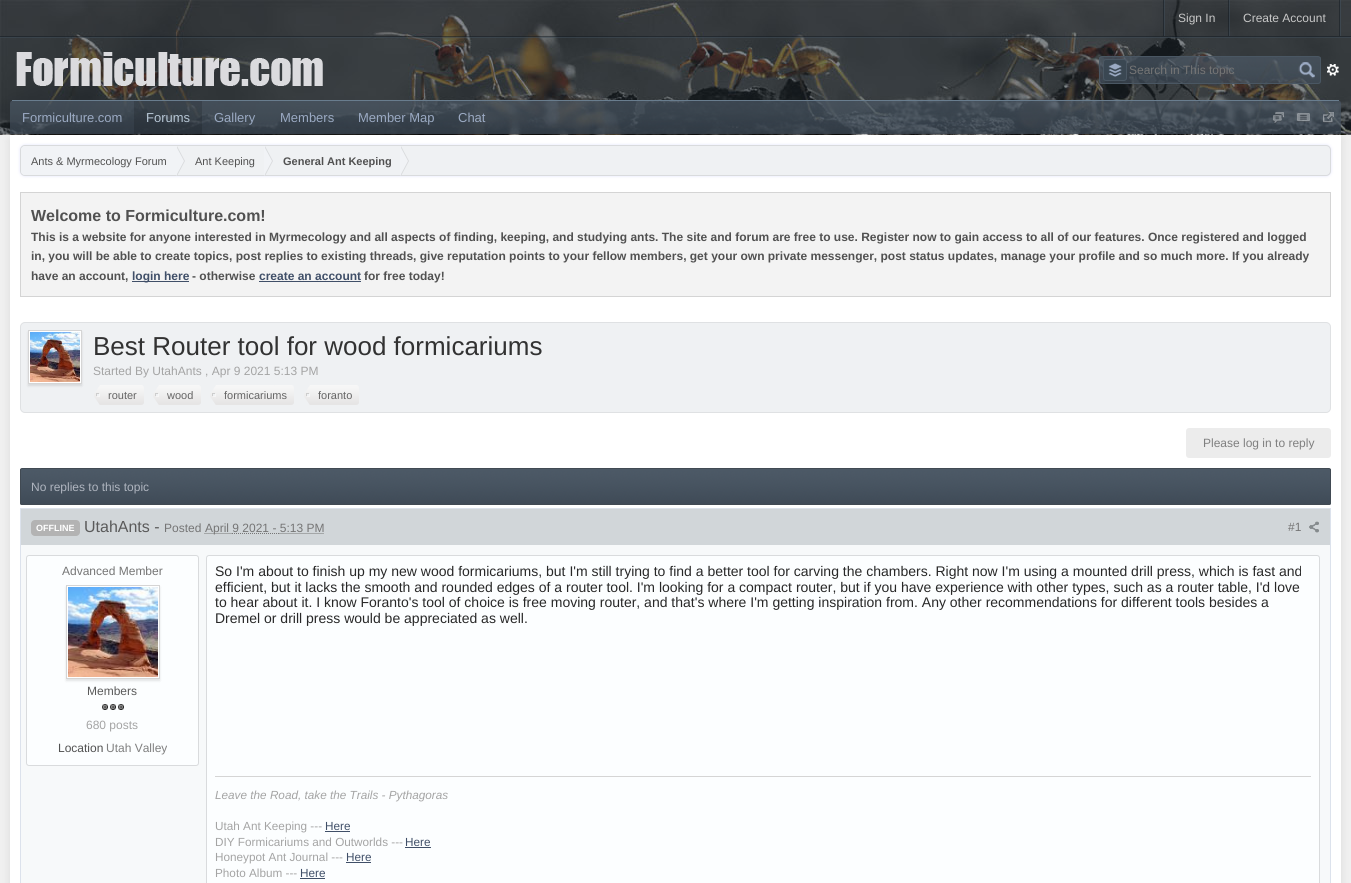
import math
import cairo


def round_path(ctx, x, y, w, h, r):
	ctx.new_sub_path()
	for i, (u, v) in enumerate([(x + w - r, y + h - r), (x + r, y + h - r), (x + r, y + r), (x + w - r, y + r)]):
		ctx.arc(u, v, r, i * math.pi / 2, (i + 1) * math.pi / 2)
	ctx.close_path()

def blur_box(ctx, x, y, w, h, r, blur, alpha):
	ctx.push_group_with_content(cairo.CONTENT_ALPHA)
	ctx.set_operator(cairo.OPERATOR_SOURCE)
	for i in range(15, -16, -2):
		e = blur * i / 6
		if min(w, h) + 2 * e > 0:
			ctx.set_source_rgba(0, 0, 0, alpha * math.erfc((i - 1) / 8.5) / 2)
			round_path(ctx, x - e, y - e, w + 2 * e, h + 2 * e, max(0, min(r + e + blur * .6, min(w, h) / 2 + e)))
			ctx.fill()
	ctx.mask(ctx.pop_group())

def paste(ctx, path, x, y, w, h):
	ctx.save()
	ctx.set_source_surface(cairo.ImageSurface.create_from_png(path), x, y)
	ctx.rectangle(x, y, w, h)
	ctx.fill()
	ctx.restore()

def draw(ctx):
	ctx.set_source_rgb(0.941, 0.941, 0.941)
	ctx.paint()
	paste(ctx, 'media/1.png', 0, 0, 1351, 135)
	ctx.set_source_rgba(0.141, 0.173, 0.204, 0.5)
	ctx.rectangle(0, 0, 1351, 37)
	ctx.fill()
	ctx.set_source_rgba(0.075, 0.106, 0.137, 0.5)
	ctx.rectangle(0, 36, 1351, 1)
	ctx.fill()
	ctx.set_source_rgba(0.255, 0.306, 0.353, 0.6)
	ctx.rectangle(1340, 0, 1, 36)
	ctx.fill()
	ctx.set_source_rgba(0.075, 0.106, 0.137, 0.5)
	ctx.rectangle(1163, 0, 1, 36)
	ctx.fill()
	ctx.rectangle(1228, 0, 1, 36)
	ctx.fill()
	ctx.set_source_rgba(0.255, 0.306, 0.353, 0.5)
	ctx.rectangle(1164, 0, 1, 36)
	ctx.fill()
	ctx.select_font_face('Liberation Sans')
	ctx.set_font_size(12)
	ctx.set_source_rgb(0.78, 0.78, 0.78)
	ctx.move_to(1178, 22)
	ctx.show_text('Sign In')
	ctx.set_source_rgba(0.075, 0.106, 0.137, 0.5)
	ctx.rectangle(1339, 0, 1, 36)
	ctx.fill()
	ctx.set_source_rgba(0.255, 0.306, 0.353, 0.5)
	ctx.rectangle(1229, 0, 1, 36)
	ctx.fill()
	ctx.set_source_rgb(0.78, 0.78, 0.78)
	ctx.move_to(1243, 22)
	ctx.show_text('Create Account')
	ctx.set_source_rgba(0.141, 0.18, 0.216, 0.5)
	ctx.rectangle(0, 37, 1351, 97)
	ctx.fill()
	ctx.set_source_rgba(0.255, 0.306, 0.353, 0.5)
	ctx.rectangle(0, 37, 1351, 1)
	ctx.fill()
	paste(ctx, 'media/2.png', 16, 52, 307, 34)
	paste(ctx, 'media/3.png', 1099, 57, 222, 27)
	round_path(ctx, 1099.5, 56.5, 221, 27, 2.5)
	ctx.set_source_rgb(0.29, 0.341, 0.388)
	ctx.set_line_width(1)
	ctx.stroke()
	ctx.set_source_rgb(0.227, 0.278, 0.322)
	round_path(ctx, 1103.5, 59.5, 23, 21, 2.5)
	ctx.fill_preserve()
	ctx.set_source_rgb(0.29, 0.341, 0.388)
	ctx.stroke()
	paste(ctx, 'media/4.png', 1108, 63, 14, 14)
	ctx.set_source_rgb(0.459, 0.459, 0.459)
	ctx.move_to(1129, 74)
	ctx.show_text('Search in This topic')
	paste(ctx, 'media/5.png', 1298, 62, 17, 17)
	paste(ctx, 'media/6.png', 1327, 64, 12, 12)
	paste(ctx, 'media/7.png', 10, 101, 1331, 33)
	ctx.set_source_rgb(0.412, 0.49, 0.557)
	ctx.rectangle(12, 100, 1327, 1)
	ctx.fill()
	ctx.set_font_size(13)
	ctx.set_source_rgb(0.608, 0.667, 0.765)
	ctx.move_to(22, 122)
	ctx.show_text('Formiculture.com')
	ctx.set_source_rgb(0, 0, 0)
	blur_box(ctx, 10, 140, 1331, 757, 0, 4.5, 0.1)
	ctx.set_source_rgba(0, 0, 0, 0.15)
	ctx.rectangle(134, 101, 68, 33)
	ctx.fill()
	ctx.set_source_rgb(0.714, 0.776, 0.831)
	ctx.move_to(146, 122)
	ctx.show_text('Forums')
	ctx.set_source_rgb(0.608, 0.667, 0.765)
	for x, y, s in [
		(214, 122, 'Gallery'),
		(280, 122, 'Members'),
		(358, 122, 'Member Map'),
		(458, 122, 'Chat'),
	]:
		ctx.move_to(x, y)
		ctx.show_text(s)
	paste(ctx, 'media/8.png', 1273, 112, 11, 12)
	paste(ctx, 'media/9.png', 1297, 113, 13, 9)
	paste(ctx, 'media/10.png', 1323, 112, 11, 11)
	ctx.set_source_rgb(1, 1, 1)
	ctx.rectangle(10, 135, 1331, 748)
	ctx.fill()
	ctx.set_source_rgb(0.427, 0.467, 0.929)
	blur_box(ctx, 20, 145, 1311, 31, 5, 1.5, 0.2)
	ctx.set_source_rgb(0.937, 0.945, 0.953)
	round_path(ctx, 20.5, 145.5, 1310, 30, 4.5)
	ctx.fill_preserve()
	ctx.set_source_rgb(0.851, 0.859, 0.867)
	ctx.stroke()
	ctx.save()
	round_path(ctx, 21, 146, 1309, 29, 4)
	ctx.clip()
	ctx.set_source_rgb(0.945, 0.953, 0.961)
	ctx.new_path()
	ctx.move_to(25, 146)
	ctx.line_to(177, 146)
	ctx.line_to(177, 177)
	ctx.line_to(25, 177)
	ctx.curve_to(23, 177, 21, 175, 21, 173)
	ctx.line_to(21, 150)
	ctx.curve_to(21, 148, 23, 146, 25, 146)
	ctx.close_path()
	ctx.fill()
	ctx.restore()
	ctx.set_font_size(11)
	ctx.set_source_rgb(0.318, 0.318, 0.318)
	ctx.move_to(31, 165)
	ctx.show_text('Ants & Myrmecology Forum')
	ctx.set_source_rgb(0.851, 0.859, 0.867)
	ctx.new_path()
	ctx.move_to(177, 176)
	ctx.line_to(177, 146)
	ctx.line_to(185, 161)
	ctx.close_path()
	ctx.fill()
	ctx.set_source_rgb(0.945, 0.953, 0.961)
	ctx.new_path()
	ctx.move_to(176, 176)
	ctx.line_to(176, 146)
	ctx.line_to(184, 161)
	ctx.close_path()
	ctx.fill()
	ctx.set_source_rgb(0.318, 0.318, 0.318)
	ctx.move_to(195, 165)
	ctx.show_text('Ant Keeping')
	ctx.set_source_rgb(0.851, 0.859, 0.867)
	ctx.new_path()
	ctx.move_to(265, 176)
	ctx.line_to(265, 146)
	ctx.line_to(273, 161)
	ctx.close_path()
	ctx.fill()
	ctx.set_source_rgb(0.945, 0.953, 0.961)
	ctx.new_path()
	ctx.move_to(264, 176)
	ctx.line_to(264, 146)
	ctx.line_to(272, 161)
	ctx.close_path()
	ctx.fill()
	ctx.select_font_face('Liberation Sans', cairo.FONT_SLANT_NORMAL, cairo.FONT_WEIGHT_BOLD)
	ctx.set_source_rgb(0.318, 0.318, 0.318)
	ctx.move_to(283, 165)
	ctx.show_text('General Ant Keeping')
	ctx.set_source_rgb(0.851, 0.859, 0.867)
	ctx.new_path()
	ctx.move_to(401, 176)
	ctx.line_to(401, 146)
	ctx.line_to(409, 161)
	ctx.close_path()
	ctx.fill()
	ctx.set_source_rgb(0.945, 0.953, 0.961)
	ctx.new_path()
	ctx.move_to(400, 176)
	ctx.line_to(400, 146)
	ctx.line_to(408, 161)
	ctx.close_path()
	ctx.fill()
	ctx.set_source_rgb(0.953, 0.953, 0.953)
	ctx.rectangle(20.5, 192.5, 1310, 104)
	ctx.fill_preserve()
	ctx.set_source_rgb(0.831, 0.831, 0.831)
	ctx.stroke()
	ctx.set_font_size(16)
	ctx.set_source_rgb(0.318, 0.318, 0.318)
	ctx.move_to(31, 221)
	ctx.show_text('Welcome to Formiculture.com!')
	ctx.set_font_size(12)
	for x, y, s in [
		(31, 241, 'This is a website for anyone interested in Myrmecology and all aspects of finding, keeping, and studying ants. The site and forum are free to use. Register now to gain access to all of our features. Once registered and logged'),
		(31, 260, 'in, you will be able to create topics, post replies to existing threads, give reputation points to your fellow members, get your own private messenger, post status updates, manage your profile and so much more. If you already'),
		(31, 280, 'have an account,'),
	]:
		ctx.move_to(x, y)
		ctx.show_text(s)
	ctx.set_source_rgb(0.251, 0.31, 0.408)
	ctx.rectangle(132, 281, 57, 1)
	ctx.fill()
	ctx.move_to(132, 280)
	ctx.show_text('login here')
	ctx.set_source_rgb(0.318, 0.318, 0.318)
	ctx.move_to(192, 280)
	ctx.show_text('- otherwise')
	ctx.set_source_rgb(0.251, 0.31, 0.408)
	ctx.move_to(259, 280)
	ctx.show_text('create an account')
	ctx.rectangle(259, 281, 102, 1)
	ctx.fill()
	ctx.set_source_rgb(0.318, 0.318, 0.318)
	ctx.move_to(364, 280)
	ctx.show_text('for free today!')
	ctx.set_source_rgb(0.937, 0.945, 0.953)
	round_path(ctx, 20.5, 322.5, 1310, 90, 4.5)
	ctx.fill_preserve()
	ctx.set_source_rgb(0.875, 0.882, 0.89)
	ctx.stroke()
	ctx.set_source_rgb(0, 0, 0)
	blur_box(ctx, 28, 332, 54, 54, 0, 1, 0.1)
	ctx.set_source_rgb(1, 1, 1)
	ctx.rectangle(28.5, 330.5, 53, 53)
	ctx.fill_preserve()
	ctx.set_source_rgb(0.835, 0.835, 0.835)
	ctx.stroke()
	paste(ctx, 'media/11.png', 30, 332, 50, 50)
	ctx.select_font_face('Liberation Sans')
	ctx.set_font_size(26)
	ctx.set_source_rgb(0.196, 0.196, 0.196)
	ctx.move_to(93, 355)
	ctx.show_text('Best Router tool for wood formicariums')
	ctx.set_font_size(12)
	ctx.set_source_rgb(0.643, 0.643, 0.643)
	ctx.move_to(93, 375)
	ctx.show_text('Started By UtahAnts , Apr 9 2021 5:13 PM')
	paste(ctx, 'media/12.png', 94, 385, 50, 20)
	ctx.set_font_size(11)
	ctx.set_source_rgb(0.396, 0.396, 0.396)
	ctx.move_to(108, 399)
	ctx.show_text('router')
	paste(ctx, 'media/13.png', 153, 385, 48, 20)
	ctx.move_to(167, 399)
	ctx.show_text('wood')
	paste(ctx, 'media/14.png', 210, 385, 84, 20)
	ctx.move_to(224, 399)
	ctx.show_text('formicariums')
	paste(ctx, 'media/15.png', 304, 385, 55, 20)
	ctx.move_to(318, 399)
	ctx.show_text('foranto')
	ctx.set_source_rgb(0.922, 0.922, 0.922)
	round_path(ctx, 1186, 428, 145, 30, 3)
	ctx.fill()
	ctx.set_font_size(12)
	ctx.set_source_rgb(0.498, 0.498, 0.498)
	ctx.move_to(1203, 447)
	ctx.show_text('Please log in to reply')
	paste(ctx, 'media/16.png', 20, 469, 1311, 36)
	round_path(ctx, 20.5, 468.5, 1310, 36, 1.5)
	ctx.set_source_rgb(0.255, 0.29, 0.325)
	ctx.stroke()
	ctx.set_source_rgb(0.686, 0.71, 0.749)
	ctx.move_to(31, 491)
	ctx.show_text('No replies to this topic')
	ctx.set_source_rgb(0.965, 0.973, 0.98)
	ctx.rectangle(21, 545, 1309, 338)
	ctx.fill()
	ctx.rectangle(20.5, 508.5, 1310, 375)
	ctx.set_source_rgb(0.863, 0.886, 0.925)
	ctx.stroke()
	ctx.set_source_rgb(0.82, 0.839, 0.851)
	ctx.rectangle(21, 509, 1309, 36)
	ctx.fill()
	ctx.set_source_rgb(0.702, 0.702, 0.702)
	round_path(ctx, 31, 520, 49, 16, 4)
	ctx.fill()
	ctx.select_font_face('Liberation Sans', cairo.FONT_SLANT_NORMAL, cairo.FONT_WEIGHT_BOLD)
	ctx.set_font_size(9)
	ctx.set_source_rgb(1, 1, 1)
	ctx.move_to(36, 531)
	ctx.show_text('OFFLINE')
	ctx.select_font_face('Liberation Sans')
	ctx.set_font_size(16)
	ctx.set_source_rgb(0.353, 0.353, 0.353)
	ctx.move_to(84, 532)
	ctx.show_text('UtahAnts -')
	ctx.set_font_size(12)
	ctx.set_source_rgb(0.459, 0.459, 0.459)
	ctx.move_to(164, 532)
	ctx.show_text('Posted')
	ctx.new_path()
	ctx.move_to(204.5, 533.5)
	ctx.line_to(232, 533.5)
	ctx.set_source_rgb(0.467, 0.467, 0.467)
	ctx.set_dash([1, 1])
	ctx.stroke()
	ctx.set_source_rgb(0.459, 0.459, 0.459)
	ctx.move_to(205, 532)
	ctx.show_text('April 9 2021 - 5:13 PM')
	ctx.new_path()
	ctx.move_to(232, 533.5)
	ctx.line_to(279.5, 533.5)
	ctx.set_source_rgb(0.467, 0.467, 0.467)
	ctx.stroke()
	ctx.new_path()
	ctx.move_to(279.5, 533.5)
	ctx.line_to(324, 533.5)
	ctx.stroke()
	ctx.set_source_rgb(0.459, 0.459, 0.459)
	ctx.move_to(1288, 531)
	ctx.show_text('#1')
	paste(ctx, 'media/17.png', 1309, 521, 10, 12)
	ctx.set_source_rgb(0.988, 0.996, 1)
	round_path(ctx, 26.5, 555.5, 172, 210, 2.5)
	ctx.fill_preserve()
	ctx.set_source_rgb(0.851, 0.859, 0.867)
	ctx.set_dash([])
	ctx.stroke()
	ctx.set_source_rgb(0.459, 0.459, 0.459)
	ctx.move_to(62, 575)
	ctx.show_text('Advanced Member')
	ctx.set_source_rgb(0, 0, 0)
	blur_box(ctx, 66, 587, 94, 94, 0, 1, 0.1)
	ctx.set_source_rgb(1, 1, 1)
	ctx.rectangle(66.5, 585.5, 93, 93)
	ctx.fill_preserve()
	ctx.set_source_rgb(0.835, 0.835, 0.835)
	ctx.stroke()
	paste(ctx, 'media/18.png', 68, 587, 90, 90)
	ctx.set_source_rgb(0.353, 0.353, 0.353)
	ctx.move_to(87, 695)
	ctx.show_text('Members')
	paste(ctx, 'media/19.png', 102, 704, 6, 6)
	paste(ctx, 'media/19.png', 110, 704, 6, 6)
	paste(ctx, 'media/19.png', 118, 704, 6, 6)
	ctx.set_source_rgb(0.643, 0.643, 0.643)
	ctx.move_to(86, 729)
	ctx.show_text('680 posts')
	ctx.set_source_rgb(0.318, 0.318, 0.318)
	ctx.move_to(58, 752)
	ctx.show_text('Location')
	ctx.set_source_rgb(0.498, 0.498, 0.498)
	ctx.move_to(106, 752)
	ctx.show_text('Utah Valley')
	ctx.set_source_rgb(0.988, 0.996, 1)
	round_path(ctx, 206.5, 555.5, 1113, 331, 2.5)
	ctx.fill_preserve()
	ctx.set_source_rgb(0.851, 0.859, 0.867)
	ctx.stroke()
	ctx.set_font_size(14)
	ctx.set_source_rgb(0.157, 0.157, 0.157)
	for x, y, s in [
		(215, 576, 'So I\'m about to finish up my new wood formicariums, but I\'m still trying to find a better tool for carving the chambers. Right now I\'m using a mounted drill press, which is fast and'),
		(215, 592, 'efficient, but it lacks the smooth and rounded edges of a router tool. I\'m looking for a compact router, but if you have experience with other types, such as a router table, I\'d love'),
		(215, 607, 'to hear about it. I know Foranto\'s tool of choice is free moving router, and that\'s where I\'m getting inspiration from. Any other recommendations for different tools besides a'),
		(215, 623, 'Dremel or drill press would be appreciated as well.'),
	]:
		ctx.move_to(x, y)
		ctx.show_text(s)
	ctx.set_source_rgb(0.835, 0.835, 0.835)
	ctx.rectangle(215, 776, 1096, 1)
	ctx.fill()
	ctx.select_font_face('Liberation Sans', cairo.FONT_SLANT_ITALIC)
	ctx.set_font_size(11.75)
	ctx.set_source_rgb(0.643, 0.643, 0.643)
	ctx.move_to(215, 799)
	ctx.show_text('Leave the Road, take the Trails - Pythagoras')
	ctx.select_font_face('Liberation Sans')
	ctx.move_to(215, 830)
	ctx.show_text('Utah Ant Keeping ---')
	ctx.set_source_rgb(0.251, 0.31, 0.408)
	ctx.move_to(325, 830)
	ctx.show_text('Here')
	ctx.rectangle(325, 831, 25, 1)
	ctx.fill()
	ctx.set_source_rgb(0.643, 0.643, 0.643)
	ctx.move_to(215, 846)
	ctx.show_text('DIY Formicariums and Outworlds ---')
	ctx.set_source_rgb(0.251, 0.31, 0.408)
	ctx.move_to(405, 846)
	ctx.show_text('Here')
	ctx.rectangle(405, 847, 26, 1)
	ctx.fill()
	ctx.set_source_rgb(0.643, 0.643, 0.643)
	ctx.move_to(215, 861)
	ctx.show_text('Honeypot Ant Journal ---')
	ctx.set_source_rgb(0.251, 0.31, 0.408)
	ctx.move_to(346, 861)
	ctx.show_text('Here')
	ctx.rectangle(346, 862, 25, 1)
	ctx.fill()
	ctx.set_source_rgb(0.643, 0.643, 0.643)
	ctx.move_to(215, 877)
	ctx.show_text('Photo Album ---')
	ctx.set_source_rgb(0.251, 0.31, 0.408)
	ctx.move_to(300, 877)
	ctx.show_text('Here')
	ctx.rectangle(300, 878, 25, 1)
	ctx.fill()


surface = cairo.ImageSurface(cairo.FORMAT_RGB24, 1351, 883)
ctx = cairo.Context(surface)
options = cairo.FontOptions()
options.set_hint_metrics(cairo.HINT_METRICS_OFF)
options.set_hint_style(cairo.HINT_STYLE_NONE)
ctx.set_font_options(options)
ctx.set_miter_limit(4)
draw(ctx)
surface.write_to_png('image.png')
